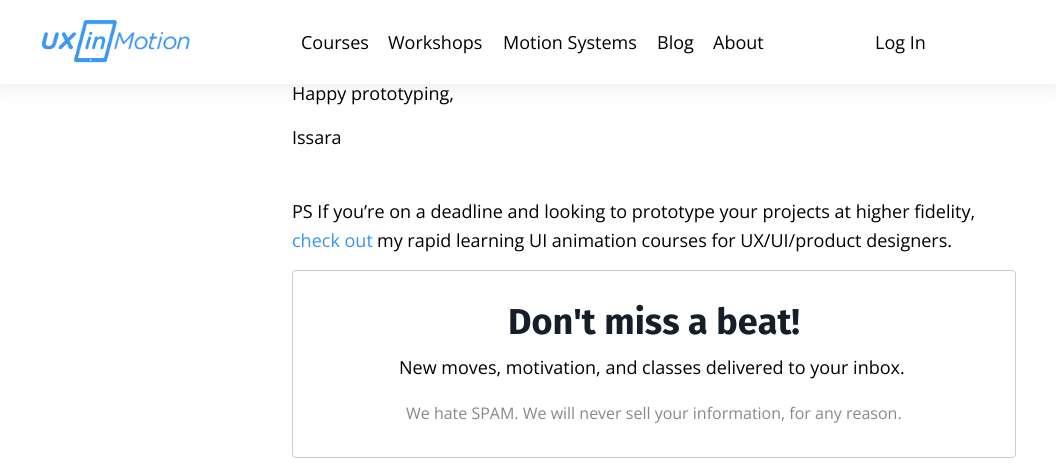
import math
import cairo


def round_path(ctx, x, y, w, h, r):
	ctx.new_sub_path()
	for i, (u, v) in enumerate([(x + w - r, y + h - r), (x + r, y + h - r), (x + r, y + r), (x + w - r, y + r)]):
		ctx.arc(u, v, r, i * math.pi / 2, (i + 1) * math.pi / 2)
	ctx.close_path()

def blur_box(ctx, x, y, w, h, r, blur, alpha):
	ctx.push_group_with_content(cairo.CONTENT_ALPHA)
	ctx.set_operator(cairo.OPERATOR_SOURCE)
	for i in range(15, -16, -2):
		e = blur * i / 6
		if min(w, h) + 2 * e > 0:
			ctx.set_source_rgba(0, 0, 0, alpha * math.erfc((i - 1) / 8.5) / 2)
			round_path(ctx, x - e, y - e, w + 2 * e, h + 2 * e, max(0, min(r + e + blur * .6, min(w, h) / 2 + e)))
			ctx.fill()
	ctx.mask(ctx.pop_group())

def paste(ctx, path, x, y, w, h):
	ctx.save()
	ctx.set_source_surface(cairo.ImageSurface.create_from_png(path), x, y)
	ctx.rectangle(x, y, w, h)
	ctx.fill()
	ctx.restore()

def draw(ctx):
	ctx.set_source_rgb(1, 1, 1)
	ctx.paint()
	ctx.set_source_rgb(0, 0, 0)
	blur_box(ctx, 0, 4, 1056, 84, 0, 10, 0.07)
	ctx.set_source_rgb(1, 1, 1)
	ctx.rectangle(0, 0, 1056, 84)
	ctx.fill()
	paste(ctx, 'media/1.png', 41, 20, 149, 43)
	ctx.select_font_face('Open Sans')
	ctx.set_font_size(18)
	ctx.set_source_rgb(0, 0, 0)
	for x, y, s in [
		(301, 49, 'Courses'),
		(388, 49, 'Workshops'),
		(503, 49, 'Motion Systems'),
		(657, 49, 'Blog'),
		(713, 49, 'About'),
		(875, 49, 'Log In'),
		(292, 100, 'Happy prototyping,'),
		(292, 144, 'Issara'),
		(292, 218, 'PS If you’re on a deadline and looking to prototype your projects at higher fidelity,'),
	]:
		ctx.move_to(x, y)
		ctx.show_text(s)
	ctx.set_source_rgb(0.208, 0.58, 0.976)
	ctx.move_to(292, 247)
	ctx.show_text('check out')
	ctx.set_source_rgb(0, 0, 0)
	ctx.move_to(377, 247)
	ctx.show_text('my rapid learning UI animation courses for UX/UI/product designers.')
	round_path(ctx, 292.5, 270.5, 723, 187, 3.5)
	ctx.set_source_rgb(0.8, 0.8, 0.8)
	ctx.set_line_width(1)
	ctx.stroke()
	ctx.select_font_face('Fira Sans', cairo.FONT_SLANT_NORMAL, cairo.FONT_WEIGHT_BOLD)
	ctx.set_font_size(36)
	ctx.set_source_rgb(0.086, 0.118, 0.165)
	ctx.move_to(508, 334)
	ctx.show_text('Don\'t miss a beat!')
	ctx.select_font_face('Open Sans')
	ctx.set_font_size(18)
	ctx.set_source_rgb(0, 0, 0)
	ctx.move_to(399, 374)
	ctx.show_text('New moves, motivation, and classes delivered to your inbox.')
	ctx.set_font_size(16)
	ctx.set_source_rgb(0.533, 0.533, 0.533)
	ctx.move_to(406, 419)
	ctx.show_text('We hate SPAM. We will never sell your information, for any reason.')


surface = cairo.ImageSurface(cairo.FORMAT_RGB24, 1056, 472)
ctx = cairo.Context(surface)
options = cairo.FontOptions()
options.set_hint_metrics(cairo.HINT_METRICS_OFF)
options.set_hint_style(cairo.HINT_STYLE_NONE)
ctx.set_font_options(options)
ctx.set_miter_limit(4)
draw(ctx)
surface.write_to_png('image.png')
